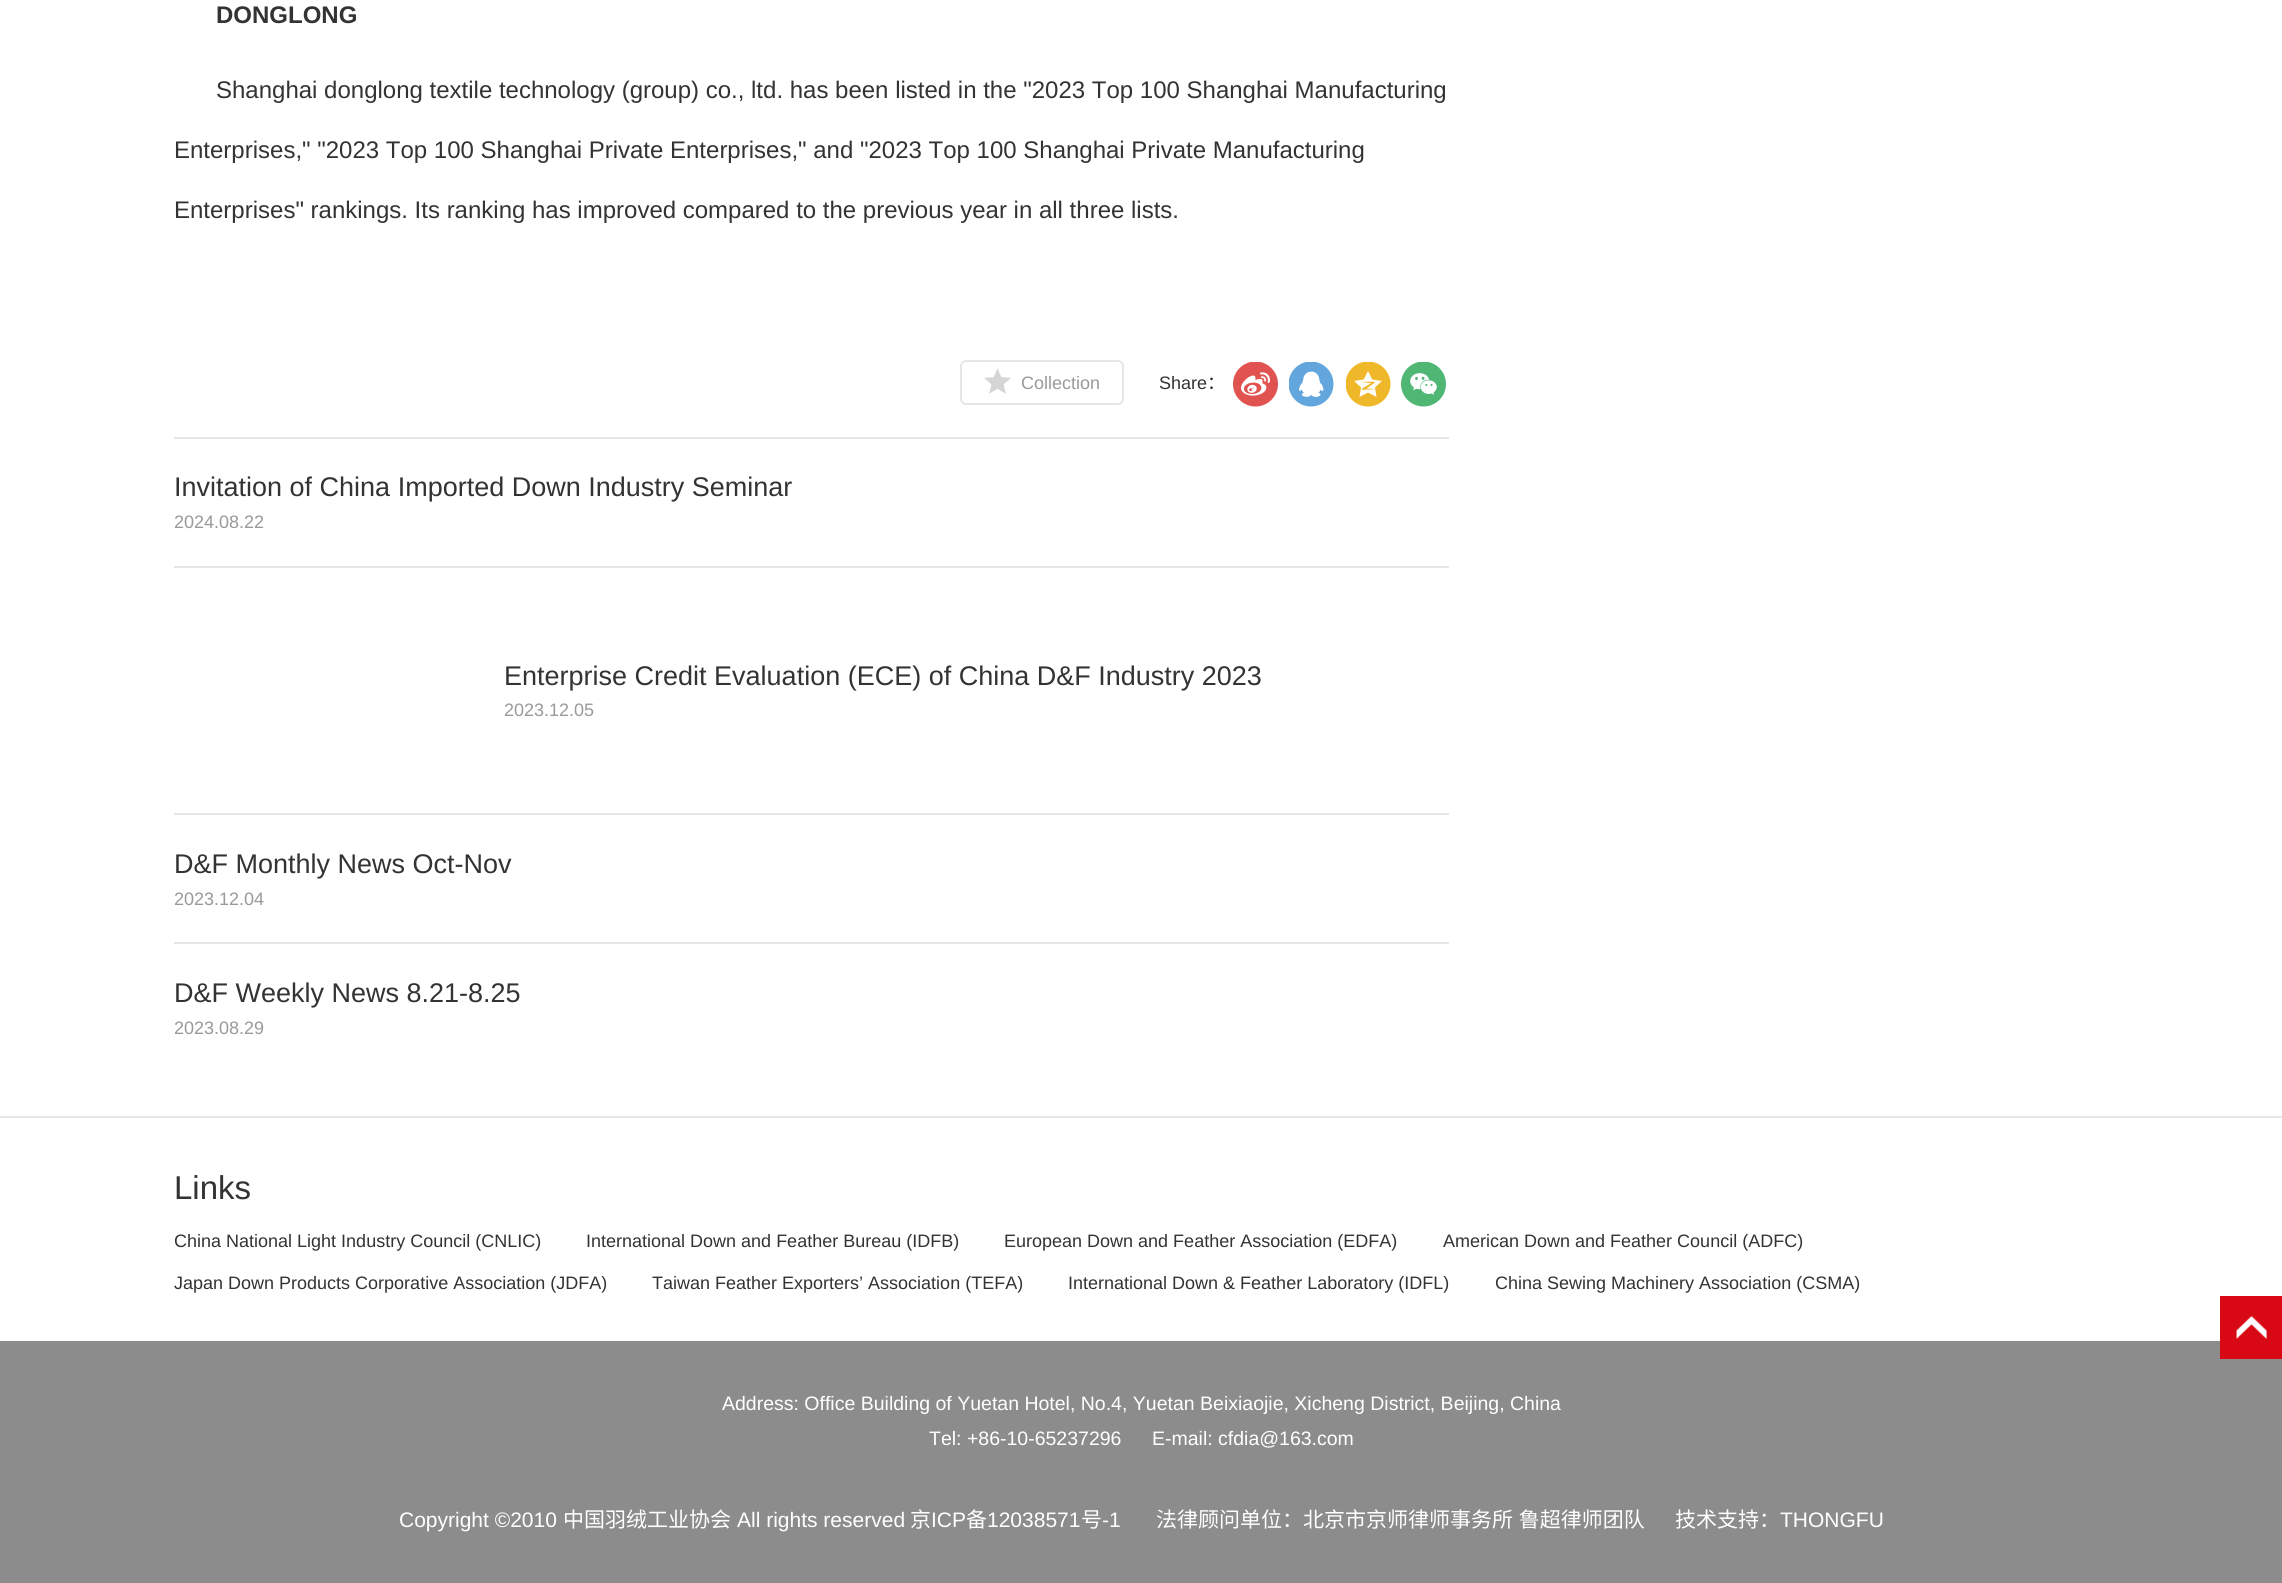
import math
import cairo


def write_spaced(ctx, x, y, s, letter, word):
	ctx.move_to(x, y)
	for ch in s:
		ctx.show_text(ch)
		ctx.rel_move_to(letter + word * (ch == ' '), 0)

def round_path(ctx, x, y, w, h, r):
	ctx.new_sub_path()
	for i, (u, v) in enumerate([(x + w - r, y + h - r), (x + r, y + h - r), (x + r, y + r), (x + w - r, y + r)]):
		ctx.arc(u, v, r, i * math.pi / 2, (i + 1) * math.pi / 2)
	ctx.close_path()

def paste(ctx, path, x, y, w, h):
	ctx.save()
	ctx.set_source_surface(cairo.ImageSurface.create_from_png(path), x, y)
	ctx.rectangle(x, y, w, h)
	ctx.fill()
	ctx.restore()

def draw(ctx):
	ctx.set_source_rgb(1, 1, 1)
	ctx.paint()
	ctx.select_font_face('Liberation Sans', cairo.FONT_SLANT_NORMAL, cairo.FONT_WEIGHT_BOLD)
	ctx.set_font_size(24)
	ctx.set_source_rgb(0.2, 0.2, 0.2)
	ctx.move_to(216, 23)
	ctx.show_text('DONGLONG')
	ctx.select_font_face('Liberation Sans')
	for x, y, s in [
		(216, 98, 'Shanghai donglong textile technology (group) co., ltd. has been listed in the "2023 Top 100 Shanghai Manufacturing'),
		(174, 158, 'Enterprises," "2023 Top 100 Shanghai Private Enterprises," and "2023 Top 100 Shanghai Private Manufacturing'),
		(174, 218, 'Enterprises" rankings. Its ranking has improved compared to the previous year in all three lists.'),
	]:
		ctx.move_to(x, y)
		ctx.show_text(s)
	round_path(ctx, 961, 361, 162, 43, 5)
	ctx.set_source_rgb(0.902, 0.902, 0.902)
	ctx.stroke()
	paste(ctx, 'media/1.png', 984, 368, 27, 26)
	ctx.set_font_size(18)
	ctx.set_source_rgb(0.6, 0.6, 0.6)
	ctx.move_to(1021, 389)
	ctx.show_text('Collection')
	ctx.set_source_rgb(0.2, 0.2, 0.2)
	ctx.move_to(1159, 389)
	ctx.show_text('Share')
	ctx.select_font_face('Noto Sans CJK SC')
	ctx.move_to(1207, 389)
	ctx.show_text('：')
	paste(ctx, 'media/2.png', 1233, 362, 45, 45)
	paste(ctx, 'media/3.png', 1289, 362, 45, 45)
	paste(ctx, 'media/4.png', 1346, 362, 45, 45)
	paste(ctx, 'media/5.png', 1401, 362, 45, 45)
	ctx.set_source_rgb(0.902, 0.902, 0.902)
	ctx.rectangle(174, 437, 1275, 2)
	ctx.fill()
	ctx.select_font_face('Liberation Sans')
	ctx.set_font_size(27)
	ctx.set_source_rgb(0.2, 0.2, 0.2)
	ctx.move_to(174, 496)
	ctx.show_text('Invitation of China Imported Down Industry Seminar')
	ctx.set_font_size(18)
	ctx.set_source_rgb(0.6, 0.6, 0.6)
	ctx.move_to(174, 528)
	ctx.show_text('2024.08.22')
	ctx.set_source_rgb(0.902, 0.902, 0.902)
	ctx.rectangle(174, 566, 1275, 2)
	ctx.fill()
	ctx.set_font_size(27)
	ctx.set_source_rgb(0.2, 0.2, 0.2)
	ctx.move_to(504, 685)
	ctx.show_text('Enterprise Credit Evaluation (ECE) of China D&F Industry 2023')
	ctx.set_font_size(18)
	ctx.set_source_rgb(0.6, 0.6, 0.6)
	ctx.move_to(504, 716)
	ctx.show_text('2023.12.05')
	ctx.set_source_rgb(0.902, 0.902, 0.902)
	ctx.rectangle(174, 813, 1275, 2)
	ctx.fill()
	ctx.set_font_size(27)
	ctx.set_source_rgb(0.2, 0.2, 0.2)
	ctx.move_to(174, 873)
	ctx.show_text('D&F Monthly News Oct-Nov')
	ctx.set_font_size(18)
	ctx.set_source_rgb(0.6, 0.6, 0.6)
	ctx.move_to(174, 905)
	ctx.show_text('2023.12.04')
	ctx.set_source_rgb(0.902, 0.902, 0.902)
	ctx.rectangle(174, 942, 1275, 2)
	ctx.fill()
	ctx.set_font_size(27)
	ctx.set_source_rgb(0.2, 0.2, 0.2)
	ctx.move_to(174, 1002)
	ctx.show_text('D&F Weekly News 8.21-8.25')
	ctx.set_font_size(18)
	ctx.set_source_rgb(0.6, 0.6, 0.6)
	ctx.move_to(174, 1034)
	ctx.show_text('2023.08.29')
	ctx.set_source_rgb(0.902, 0.902, 0.902)
	ctx.rectangle(0, 1116, 2282, 2)
	ctx.fill()
	ctx.set_font_size(33)
	ctx.set_source_rgb(0.2, 0.2, 0.2)
	ctx.move_to(174, 1199)
	ctx.show_text('Links')
	ctx.set_font_size(18)
	for x, y, s in [
		(174, 1247, 'China National Light Industry Council (CNLIC)'),
		(586, 1247, 'International Down and Feather Bureau (IDFB)'),
		(1004, 1247, 'European Down and Feather Association (EDFA)'),
		(1443, 1247, 'American Down and Feather Council (ADFC)'),
		(174, 1289, 'Japan Down Products Corporative Association (JDFA)'),
		(652, 1289, 'Taiwan Feather Exporters’ Association (TEFA)'),
		(1068, 1289, 'International Down & Feather Laboratory (IDFL)'),
		(1495, 1289, 'China Sewing Machinery Association (CSMA)'),
	]:
		ctx.move_to(x, y)
		ctx.show_text(s)
	ctx.set_source_rgb(0.549, 0.549, 0.549)
	ctx.rectangle(0, 1341, 2282, 242)
	ctx.fill()
	ctx.set_source_rgb(0.847, 0.039, 0.082)
	ctx.rectangle(2220, 1296, 62, 63)
	ctx.fill()
	paste(ctx, 'media/6.png', 2236, 1316, 31, 23)
	ctx.set_font_size(19.5)
	ctx.set_source_rgb(1, 1, 1)
	for x, y, s in [
		(722, 1410, 'Address: Office Building of Yuetan Hotel, No.4, Yuetan Beixiaojie, Xicheng District, Beijing, China'),
		(929, 1445, 'Tel: +86-10-65237296'),
		(1152, 1445, 'E-mail: cfdia@163.com'),
	]:
		ctx.move_to(x, y)
		ctx.show_text(s)
	ctx.set_font_size(21)
	ctx.move_to(399, 1527)
	ctx.show_text('Copyright ©2010')
	ctx.select_font_face('Noto Sans CJK SC')
	ctx.move_to(563, 1527)
	ctx.show_text('中国羽绒工业协会')
	ctx.select_font_face('Liberation Sans')
	ctx.move_to(737, 1527)
	ctx.show_text('All rights reserved')
	ctx.select_font_face('Noto Sans CJK SC')
	ctx.move_to(910, 1527)
	ctx.show_text('京')
	ctx.select_font_face('Liberation Sans')
	ctx.move_to(931, 1527)
	ctx.show_text('ICP')
	ctx.select_font_face('Noto Sans CJK SC')
	ctx.move_to(966, 1527)
	ctx.show_text('备')
	ctx.select_font_face('Liberation Sans')
	ctx.move_to(987, 1527)
	ctx.show_text('12038571')
	ctx.select_font_face('Noto Sans CJK SC')
	ctx.move_to(1081, 1527)
	ctx.show_text('号')
	ctx.select_font_face('Liberation Sans')
	ctx.move_to(1102, 1527)
	ctx.show_text('-1')
	ctx.select_font_face('Noto Sans CJK SC')
	write_spaced(ctx, 1156, 1527, '法律顾问单位：北京市京师律师事务所 鲁超律师团队', 0, 1)
	ctx.move_to(1675, 1527)
	ctx.show_text('技术支持：')
	ctx.select_font_face('Liberation Sans')
	ctx.move_to(1780, 1527)
	ctx.show_text('THONGFU')


surface = cairo.ImageSurface(cairo.FORMAT_RGB24, 2282, 1583)
ctx = cairo.Context(surface)
options = cairo.FontOptions()
options.set_hint_metrics(cairo.HINT_METRICS_OFF)
options.set_hint_style(cairo.HINT_STYLE_NONE)
ctx.set_font_options(options)
ctx.set_miter_limit(4)
draw(ctx)
surface.write_to_png('image.png')
